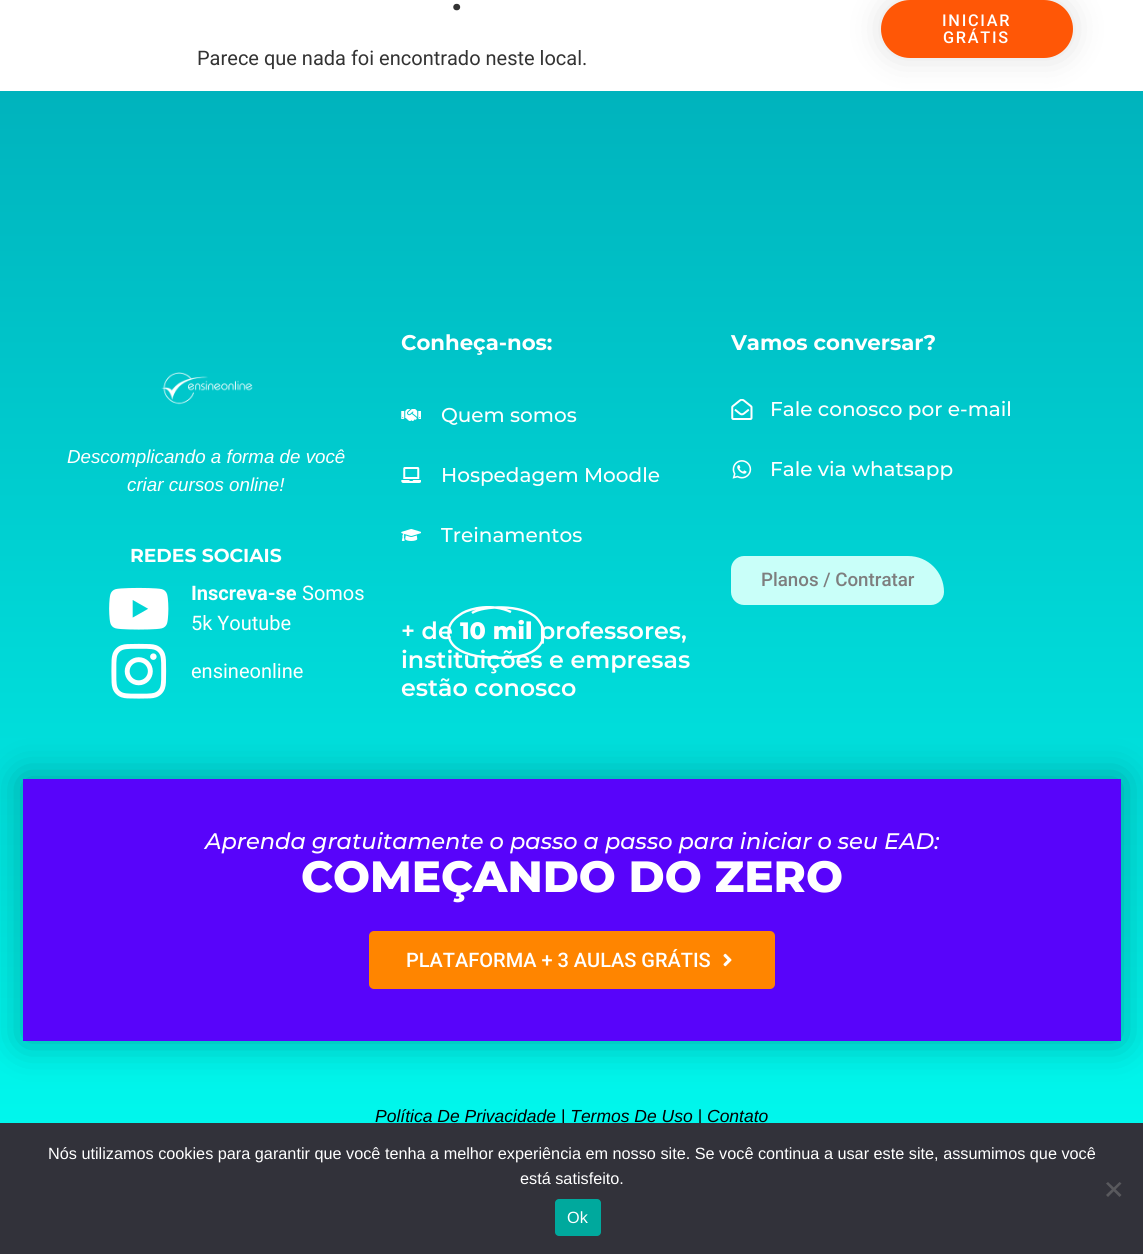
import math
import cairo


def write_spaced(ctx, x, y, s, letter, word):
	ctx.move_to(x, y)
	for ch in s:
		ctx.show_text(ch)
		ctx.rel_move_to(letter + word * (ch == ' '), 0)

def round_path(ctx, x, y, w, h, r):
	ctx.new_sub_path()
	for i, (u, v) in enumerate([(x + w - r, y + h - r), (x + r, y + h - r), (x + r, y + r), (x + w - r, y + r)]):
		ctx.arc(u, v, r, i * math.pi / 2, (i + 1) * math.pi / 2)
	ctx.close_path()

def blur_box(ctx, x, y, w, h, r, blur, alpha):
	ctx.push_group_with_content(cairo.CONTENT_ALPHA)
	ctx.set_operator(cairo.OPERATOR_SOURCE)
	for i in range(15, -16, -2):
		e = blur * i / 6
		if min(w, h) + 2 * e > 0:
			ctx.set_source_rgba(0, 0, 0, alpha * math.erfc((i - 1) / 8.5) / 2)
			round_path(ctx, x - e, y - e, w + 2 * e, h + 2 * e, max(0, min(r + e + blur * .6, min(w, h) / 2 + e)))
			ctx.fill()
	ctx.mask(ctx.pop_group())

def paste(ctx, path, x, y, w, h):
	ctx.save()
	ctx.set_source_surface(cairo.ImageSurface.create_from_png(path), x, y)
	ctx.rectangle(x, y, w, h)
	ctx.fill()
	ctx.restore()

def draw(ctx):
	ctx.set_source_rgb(1, 1, 1)
	ctx.paint()
	ctx.select_font_face('Roboto Medium')
	ctx.set_font_size(50)
	ctx.set_source_rgb(0.2, 0.2, 0.2)
	ctx.move_to(450, 10)
	ctx.show_text('.')
	ctx.select_font_face('Roboto')
	ctx.set_font_size(20)
	ctx.move_to(197, 65)
	ctx.show_text('Parece que nada foi encontrado neste local.')
	gradient = cairo.LinearGradient(572, 91, 572, 1249)
	gradient.add_color_stop_rgba(0, 0, 0.702, 0.741, 1)
	gradient.add_color_stop_rgba(1, 0, 1, 0.949, 1)
	ctx.set_source(gradient)
	ctx.rectangle(0, 91, 1143, 1032)
	ctx.fill()
	ctx.set_source_rgb(0, 0, 0)
	blur_box(ctx, 881, 0, 192, 58, 29, 17, 0.12)
	ctx.set_source_rgb(1, 0.341, 0.024)
	round_path(ctx, 881, 0, 192, 58, 29)
	ctx.fill()
	ctx.select_font_face('Roboto Medium')
	ctx.set_font_size(16.25)
	ctx.set_source_rgb(1, 1, 1)
	write_spaced(ctx, 942, 26, 'INICIAR', 1.75, 0)
	write_spaced(ctx, 943, 43, 'GRÁTIS', 1.75, 0)
	paste(ctx, 'media/1.png', 161, 372, 92, 33)
	ctx.select_font_face('Liberation Sans', cairo.FONT_SLANT_ITALIC)
	ctx.set_font_size(18.75)
	ctx.move_to(67, 463)
	ctx.show_text('Descomplicando a forma de você')
	ctx.move_to(127, 491)
	ctx.show_text('criar cursos online!')
	ctx.select_font_face('Montserrat', cairo.FONT_SLANT_NORMAL, cairo.FONT_WEIGHT_BOLD)
	ctx.move_to(130, 562)
	ctx.show_text('REDES SOCIAIS')
	paste(ctx, 'media/2.png', 109, 587, 60, 43)
	ctx.select_font_face('Roboto', cairo.FONT_SLANT_NORMAL, cairo.FONT_WEIGHT_BOLD)
	ctx.set_font_size(20)
	ctx.move_to(191, 600)
	ctx.show_text('Inscreva-se')
	ctx.select_font_face('Roboto')
	ctx.move_to(302, 600)
	ctx.show_text('Somos')
	ctx.move_to(191, 630)
	ctx.show_text('5k Youtube')
	paste(ctx, 'media/3.png', 111, 643, 56, 56)
	ctx.move_to(191, 678)
	ctx.show_text('ensineonline')
	ctx.select_font_face('Montserrat', cairo.FONT_SLANT_NORMAL, cairo.FONT_WEIGHT_BOLD)
	ctx.set_font_size(21.25)
	ctx.move_to(401, 350)
	ctx.show_text('Conheça-nos:')
	paste(ctx, 'media/4.png', 401, 409, 20, 12)
	ctx.select_font_face('Montserrat Medium')
	ctx.set_font_size(20)
	ctx.move_to(441, 422)
	ctx.show_text('Quem somos')
	paste(ctx, 'media/5.png', 401, 467, 20, 16)
	ctx.move_to(441, 482)
	ctx.show_text('Hospedagem Moodle')
	paste(ctx, 'media/6.png', 401, 529, 20, 12)
	ctx.move_to(441, 542)
	ctx.show_text('Treinamentos')
	ctx.new_path()
	ctx.move_to(511, 612)
	ctx.curve_to(492, 603, 470.5, 608.5, 462.5, 613)
	ctx.curve_to(452, 619.5, 448.5, 625, 448.5, 633.5)
	ctx.curve_to(449, 645, 459, 652.5, 476.5, 656)
	ctx.curve_to(489.5, 658.5, 518, 659, 529.5, 653)
	ctx.curve_to(542.5, 647.5, 550, 632.5, 536.5, 618)
	ctx.curve_to(523, 604, 482.5, 605.5, 472, 613)
	ctx.set_line_width(2.4)
	ctx.stroke()
	ctx.select_font_face('Montserrat SemiBold')
	ctx.set_font_size(23.75)
	ctx.move_to(401, 639)
	ctx.show_text('+ de')
	ctx.select_font_face('Montserrat ExtraBold')
	ctx.move_to(460, 639)
	ctx.show_text('10 mil')
	ctx.select_font_face('Montserrat SemiBold')
	for x, y, s in [
		(539, 639, 'professores,'),
		(401, 668, 'instituições e empresas'),
		(401, 696, 'estão conosco'),
	]:
		ctx.move_to(x, y)
		ctx.show_text(s)
	ctx.select_font_face('Montserrat', cairo.FONT_SLANT_NORMAL, cairo.FONT_WEIGHT_BOLD)
	ctx.set_font_size(21.25)
	ctx.move_to(731, 350)
	ctx.show_text('Vamos conversar?')
	paste(ctx, 'media/7.png', 731, 399, 22, 21)
	ctx.select_font_face('Montserrat Medium')
	ctx.set_font_size(20)
	ctx.move_to(770, 416)
	ctx.show_text('Fale conosco por e-mail')
	paste(ctx, 'media/8.png', 732, 460, 20, 19)
	ctx.move_to(770, 476)
	ctx.show_text('Fale via whatsapp')
	ctx.set_source_rgb(0.788, 1, 0.973)
	ctx.new_path()
	ctx.move_to(744, 556)
	ctx.line_to(908, 556)
	ctx.curve_to(928, 556, 944, 572, 944, 592)
	ctx.curve_to(944, 599, 938, 605, 931, 605)
	ctx.line_to(744, 605)
	ctx.curve_to(737, 605, 731, 599, 731, 592)
	ctx.line_to(731, 569)
	ctx.curve_to(731, 562, 737, 556, 744, 556)
	ctx.close_path()
	ctx.fill()
	ctx.select_font_face('Roboto Medium')
	ctx.set_font_size(18.75)
	ctx.set_source_rgb(0.494, 0.494, 0.494)
	ctx.move_to(761, 586)
	ctx.show_text('Planos / Contratar')
	ctx.set_source_rgb(0, 0, 0)
	blur_box(ctx, 23, 779, 1098, 262, 0, 19, 0.3)
	ctx.set_source_rgb(0.345, 0.016, 0.98)
	ctx.rectangle(23, 779, 1098, 262)
	ctx.fill()
	ctx.select_font_face('Montserrat Medium', cairo.FONT_SLANT_ITALIC)
	ctx.set_font_size(22.5)
	ctx.set_source_rgb(1, 1, 1)
	ctx.move_to(205, 849)
	ctx.show_text('Aprenda gratuitamente o passo a passo para iniciar o seu EAD:')
	ctx.select_font_face('Montserrat ExtraBold')
	ctx.set_font_size(43.75)
	ctx.move_to(301, 892)
	ctx.show_text('COMEÇANDO DO ZERO')
	ctx.set_source_rgb(1, 0.522, 0)
	round_path(ctx, 369, 931, 406, 58, 5)
	ctx.fill()
	ctx.select_font_face('Roboto Medium')
	ctx.set_font_size(20)
	ctx.set_source_rgb(1, 1, 1)
	ctx.move_to(406, 967)
	ctx.show_text('PLATAFORMA + 3 AULAS GRÁTIS')
	paste(ctx, 'media/9.png', 723, 953, 9, 14)
	ctx.select_font_face('Liberation Sans', cairo.FONT_SLANT_ITALIC)
	ctx.set_font_size(17.5)
	ctx.set_source_rgb(0, 0, 0)
	ctx.move_to(375, 1122)
	ctx.show_text('Política De Privacidade | Termos De Uso | Contato')
	ctx.set_source_rgb(0.196, 0.196, 0.227)
	ctx.rectangle(0, 1123, 1143, 131)
	ctx.fill()
	ctx.select_font_face('Liberation Sans')
	ctx.set_font_size(16.25)
	ctx.set_source_rgb(1, 1, 1)
	ctx.move_to(48, 1159)
	ctx.show_text('Nós utilizamos cookies para garantir que você tenha a melhor experiência em nosso site. Se você continua a usar este site, assumimos que você')
	ctx.move_to(520, 1184)
	ctx.show_text('está satisfeito.')
	ctx.set_source_rgb(0.349, 0.349, 0.365)
	ctx.new_path()
	ctx.move_to(1119.5, 1182)
	ctx.line_to(1121.5, 1183.5)
	ctx.line_to(1108, 1197)
	ctx.line_to(1106, 1195)
	ctx.close_path()
	ctx.fill()
	ctx.new_path()
	ctx.move_to(1106, 1183.5)
	ctx.line_to(1108, 1182)
	ctx.line_to(1121.5, 1195)
	ctx.line_to(1119.5, 1197)
	ctx.close_path()
	ctx.fill()
	ctx.set_source_rgb(0, 0.663, 0.616)
	round_path(ctx, 555, 1199, 46, 37, 4)
	ctx.fill()
	ctx.set_source_rgb(1, 1, 1)
	ctx.move_to(567, 1223)
	ctx.show_text('Ok')


surface = cairo.ImageSurface(cairo.FORMAT_RGB24, 1143, 1254)
ctx = cairo.Context(surface)
options = cairo.FontOptions()
options.set_hint_metrics(cairo.HINT_METRICS_OFF)
options.set_hint_style(cairo.HINT_STYLE_NONE)
ctx.set_font_options(options)
ctx.set_miter_limit(4)
draw(ctx)
surface.write_to_png('image.png')
